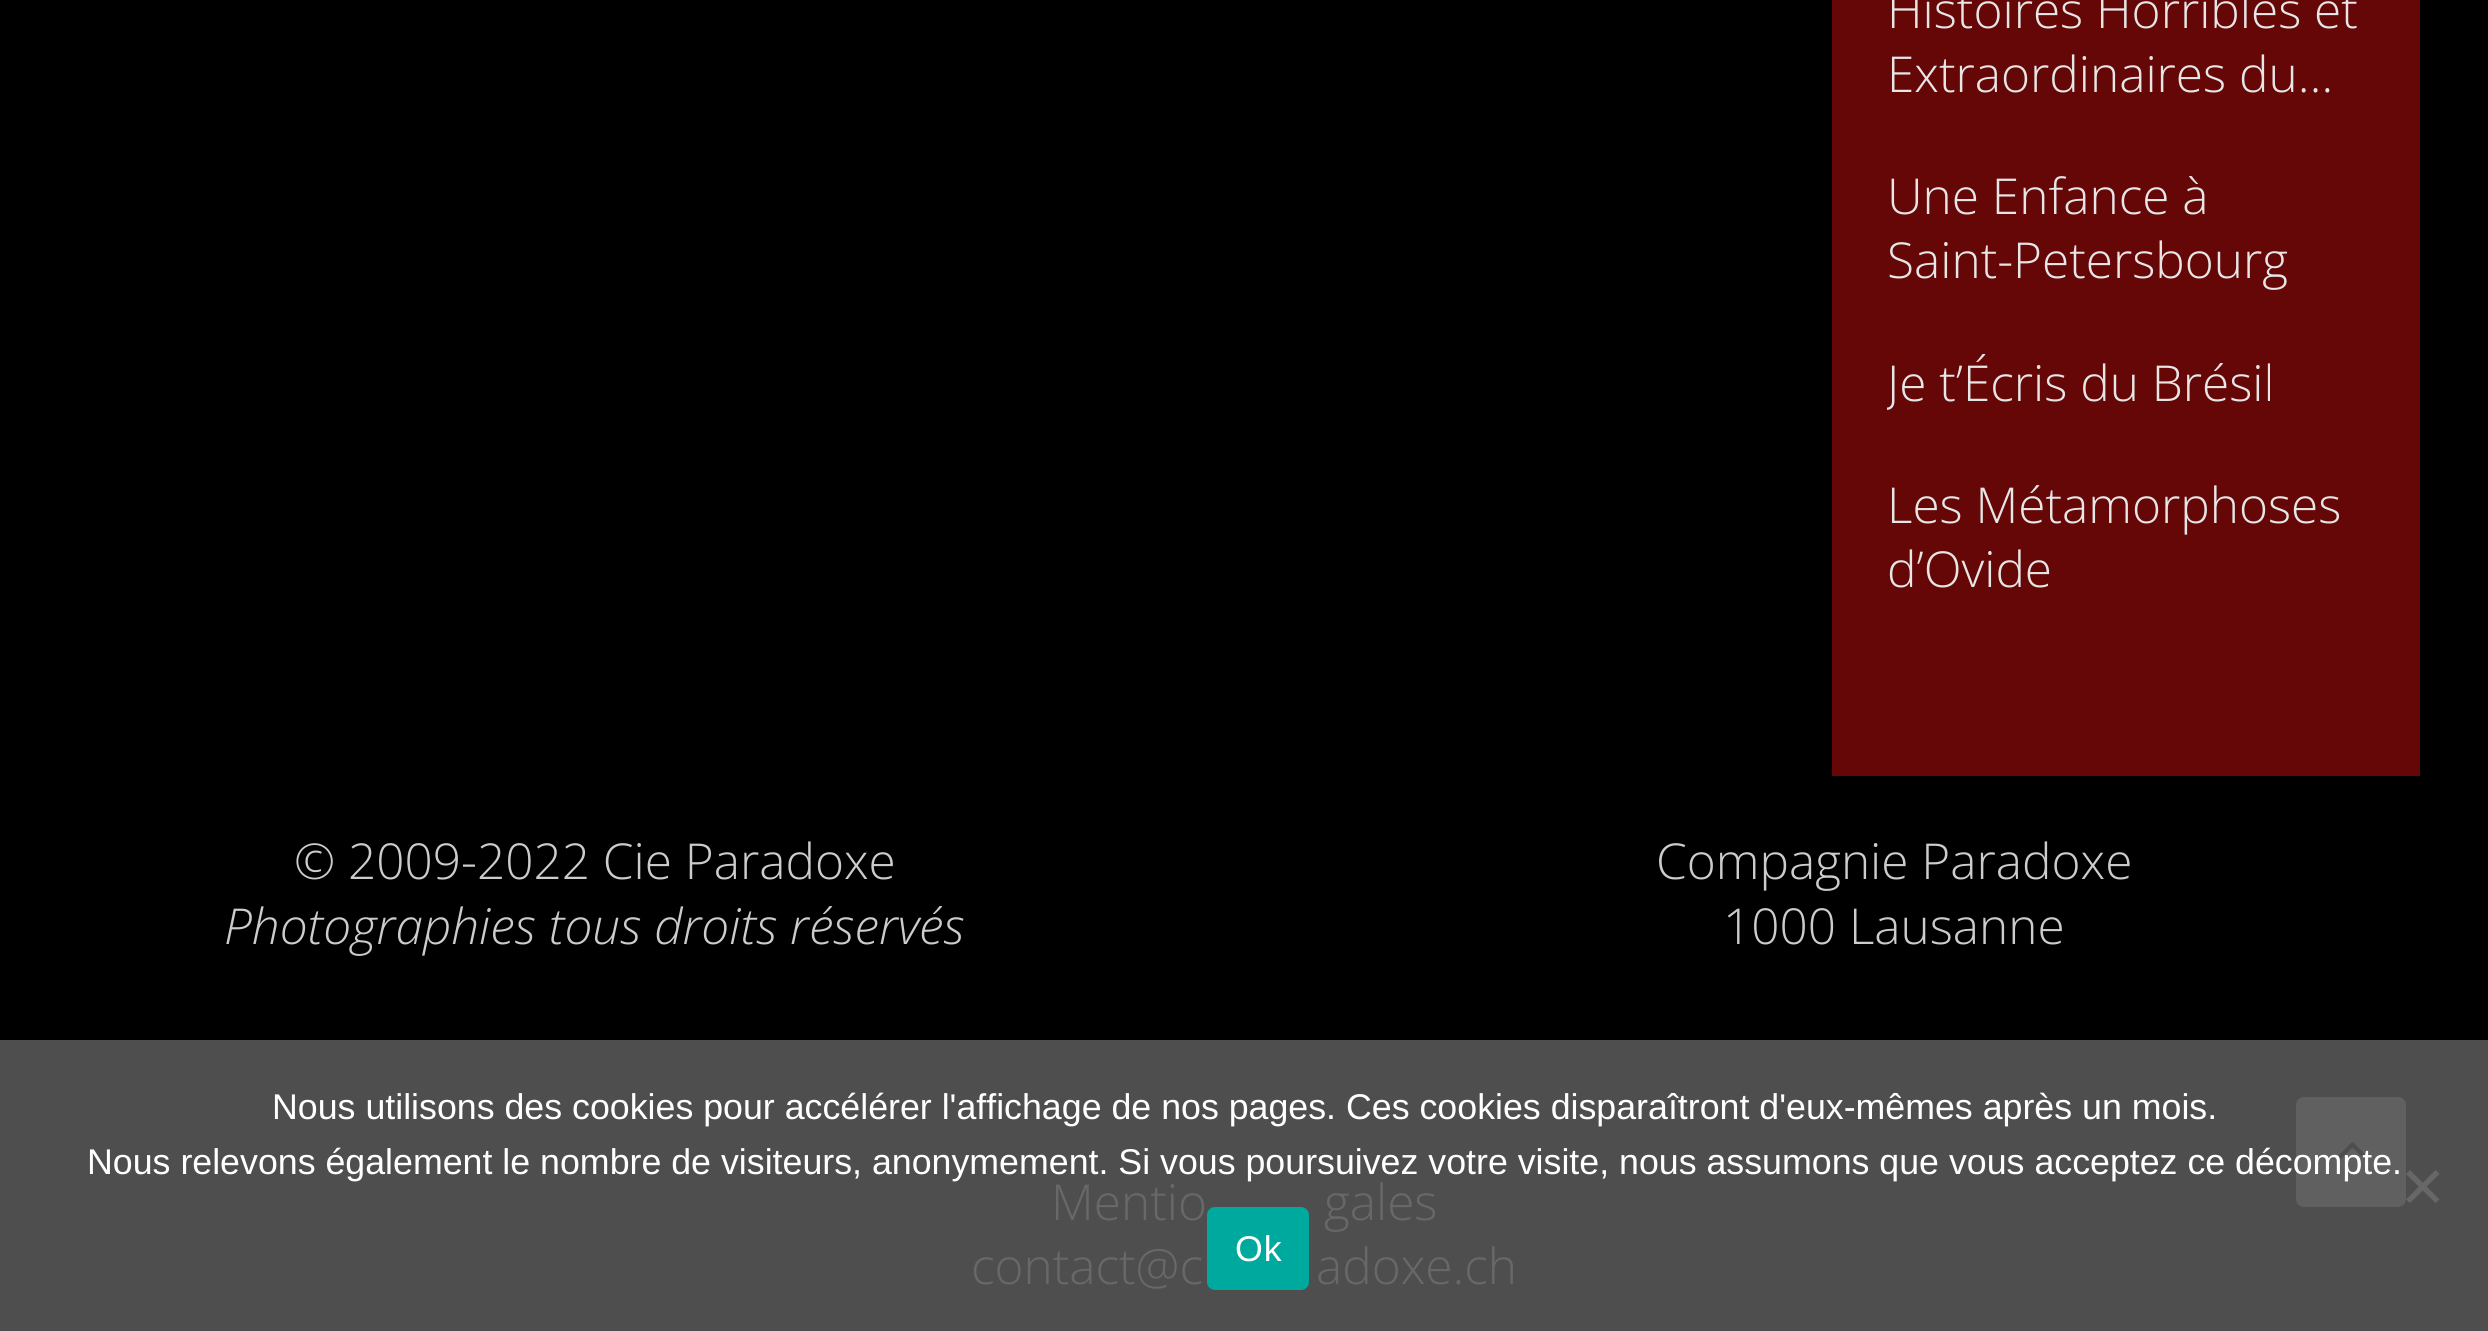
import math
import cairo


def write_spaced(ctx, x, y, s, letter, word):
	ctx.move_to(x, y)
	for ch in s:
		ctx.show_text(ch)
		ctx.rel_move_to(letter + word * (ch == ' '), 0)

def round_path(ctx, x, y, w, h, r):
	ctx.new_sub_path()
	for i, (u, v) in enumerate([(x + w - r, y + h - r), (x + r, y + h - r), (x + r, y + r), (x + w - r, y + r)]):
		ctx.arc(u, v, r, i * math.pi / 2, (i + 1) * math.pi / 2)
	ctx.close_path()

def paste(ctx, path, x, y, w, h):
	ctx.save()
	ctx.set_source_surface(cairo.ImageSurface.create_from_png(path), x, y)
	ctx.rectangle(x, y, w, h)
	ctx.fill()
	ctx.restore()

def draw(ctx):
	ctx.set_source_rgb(0, 0, 0)
	ctx.paint()
	ctx.set_source_rgb(0.306, 0.306, 0.306)
	ctx.rectangle(0, 1040, 2488, 291)
	ctx.fill()
	ctx.set_source_rgb(0.4, 0.031, 0.031)
	ctx.rectangle(1832, 0, 588, 776)
	ctx.fill()
	ctx.select_font_face('Open Sans Light')
	ctx.set_font_size(49.5)
	ctx.set_source_rgb(0.902, 0.902, 0.902)
	for x, y, s in [
		(1887, 28, 'Histoires Horribles et'),
		(1887, 92, 'Extraordinaires du…'),
		(1887, 214, 'Une Enfance à'),
		(1887, 278, 'Saint-Petersbourg'),
	]:
		ctx.move_to(x, y)
		ctx.show_text(s)
	ctx.save()
	ctx.rectangle(1887, 352, 478, 63)
	ctx.clip()
	ctx.move_to(1887, 401)
	ctx.show_text('Je t’Écris du Brésil')
	ctx.restore()
	ctx.move_to(1887, 523)
	ctx.show_text('Les Métamorphoses')
	ctx.move_to(1887, 587)
	ctx.show_text('d’Ovide')
	ctx.set_source_rgb(0.8, 0.8, 0.8)
	ctx.move_to(294, 879)
	ctx.show_text('© 2009-2022 Cie Paradoxe')
	ctx.select_font_face('Open Sans Light', cairo.FONT_SLANT_ITALIC)
	ctx.move_to(224, 944)
	ctx.show_text('Photographies tous droits réservés')
	ctx.select_font_face('Open Sans Light')
	ctx.move_to(1656, 879)
	ctx.show_text('Compagnie Paradoxe')
	ctx.move_to(1723, 944)
	ctx.show_text('1000 Lausanne')
	ctx.set_source_rgb(0.408, 0.408, 0.408)
	for x, y, s in [
		(1051, 1220, 'Mentio'),
		(1324, 1220, 'gales'),
		(971, 1284, 'contact@c'),
		(1316, 1284, 'adoxe.ch'),
	]:
		ctx.move_to(x, y)
		ctx.show_text(s)
	ctx.select_font_face('Liberation Sans')
	ctx.set_font_size(35.75)
	ctx.set_source_rgb(1, 1, 1)
	ctx.move_to(272, 1119)
	ctx.show_text('Nous utilisons des cookies pour accélérer l\'affichage de nos pages. Ces cookies disparaîtront d\'eux-mêmes après un mois.')
	ctx.set_source_rgb(0.376, 0.376, 0.376)
	round_path(ctx, 2296, 1097, 110, 110, 8)
	ctx.fill()
	paste(ctx, 'media/1.png', 2337, 1142, 31, 18)
	ctx.set_source_rgb(1, 1, 1)
	ctx.move_to(87, 1174)
	ctx.show_text('Nous relevons également le nombre de visiteurs, anonymement. Si vous poursuivez votre visite, nous assumons que vous acceptez ce décompte.')
	ctx.set_source_rgb(0.404, 0.404, 0.404)
	ctx.new_path()
	ctx.move_to(2435.5, 1170)
	ctx.line_to(2439.5, 1174)
	ctx.line_to(2410, 1203)
	ctx.line_to(2406, 1199.5)
	ctx.close_path()
	ctx.fill()
	ctx.new_path()
	ctx.move_to(2406, 1174)
	ctx.line_to(2410, 1170)
	ctx.line_to(2439.5, 1199.5)
	ctx.line_to(2435.5, 1203)
	ctx.close_path()
	ctx.fill()
	ctx.set_source_rgb(0, 0.663, 0.616)
	round_path(ctx, 1207, 1207, 102, 83, 8)
	ctx.fill()
	ctx.set_source_rgb(1, 1, 1)
	write_spaced(ctx, 1235, 1261, 'Ok', 1, 0)


surface = cairo.ImageSurface(cairo.FORMAT_RGB24, 2488, 1331)
ctx = cairo.Context(surface)
options = cairo.FontOptions()
options.set_hint_metrics(cairo.HINT_METRICS_OFF)
options.set_hint_style(cairo.HINT_STYLE_NONE)
ctx.set_font_options(options)
ctx.set_miter_limit(4)
draw(ctx)
surface.write_to_png('image.png')
